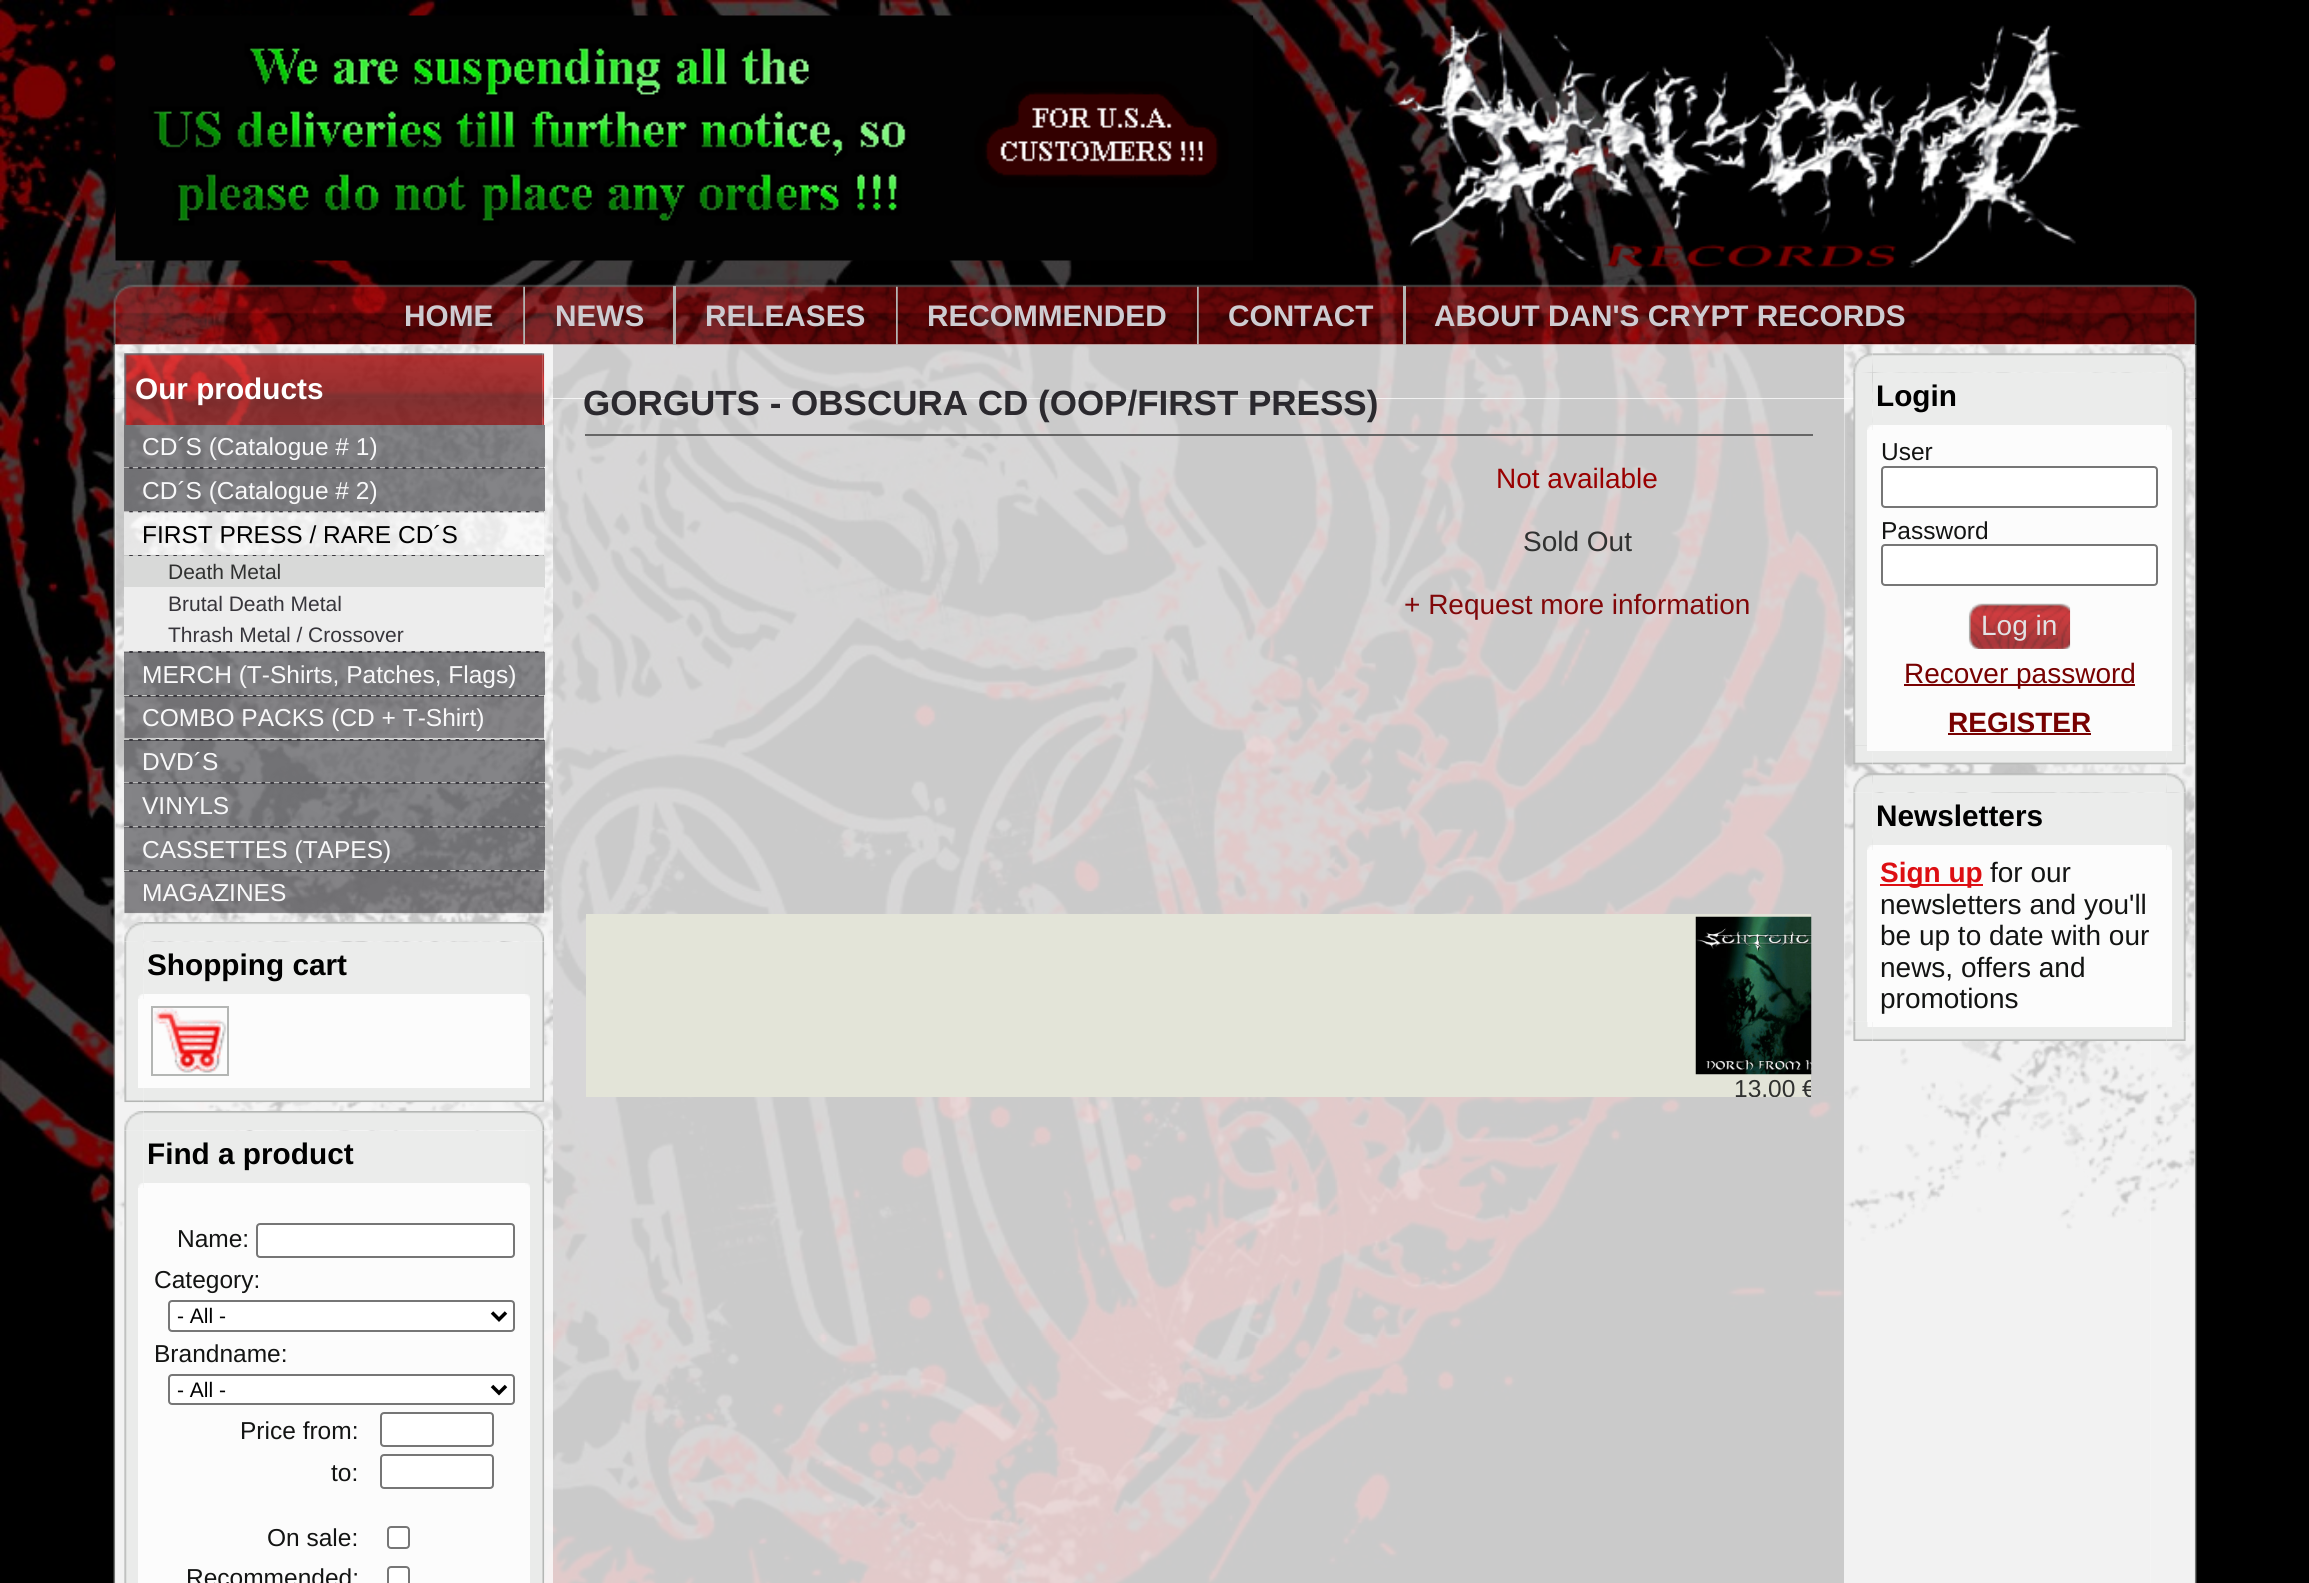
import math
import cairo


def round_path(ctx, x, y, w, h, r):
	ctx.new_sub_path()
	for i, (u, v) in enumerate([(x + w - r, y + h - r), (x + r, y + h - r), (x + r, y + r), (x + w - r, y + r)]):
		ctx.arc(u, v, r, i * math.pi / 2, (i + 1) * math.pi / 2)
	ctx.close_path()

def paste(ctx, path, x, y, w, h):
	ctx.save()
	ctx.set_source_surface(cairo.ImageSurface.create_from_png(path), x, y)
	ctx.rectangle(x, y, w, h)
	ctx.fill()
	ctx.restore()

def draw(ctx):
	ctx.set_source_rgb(0, 0, 0)
	ctx.paint()
	paste(ctx, 'media/1.png', 0, 0, 1847, 1583)
	paste(ctx, 'media/2.png', 115, 15, 1138, 246)
	paste(ctx, 'media/3.png', 1388, 25, 697, 243)
	paste(ctx, 'media/9.png', 107, 344, 53, 55)
	paste(ctx, 'media/10.png', 2150, 344, 47, 55)
	ctx.set_source_rgba(0.988, 0.988, 0.988, 0.8)
	ctx.rectangle(159, 344, 1992, 55)
	ctx.fill()
	paste(ctx, 'media/11.png', 107, 398, 53, 1185)
	paste(ctx, 'media/58.png', 2150, 398, 47, 1185)
	ctx.rectangle(159, 398, 1992, 1185)
	ctx.fill()
	ctx.rectangle(115, 344, 438, 1239)
	ctx.fill()
	paste(ctx, 'media/12.png', 115, 344, 438, 883)
	ctx.rectangle(1844, 344, 351, 1239)
	ctx.fill()
	paste(ctx, 'media/35.png', 1844, 344, 351, 897)
	paste(ctx, 'media/4.png', 108, 279, 2061, 66)
	paste(ctx, 'media/5.png', 2168, 284, 29, 61)
	ctx.select_font_face('Liberation Sans', cairo.FONT_SLANT_NORMAL, cairo.FONT_WEIGHT_BOLD)
	ctx.set_font_size(29.75)
	ctx.set_source_rgb(0.808, 0.8, 0.82)
	ctx.move_to(404, 326)
	ctx.show_text('HOME')
	paste(ctx, 'media/6.png', 523, 286, 2, 59)
	ctx.move_to(555, 326)
	ctx.show_text('NEWS')
	ctx.set_source_rgb(0.706, 0.714, 0.706)
	ctx.rectangle(673, 286, 3, 59)
	ctx.fill()
	ctx.set_source_rgb(0.808, 0.8, 0.82)
	ctx.move_to(705, 326)
	ctx.show_text('RELEASES')
	paste(ctx, 'media/7.png', 896, 286, 2, 59)
	ctx.move_to(927, 326)
	ctx.show_text('RECOMMENDED')
	paste(ctx, 'media/8.png', 1197, 286, 2, 59)
	ctx.move_to(1228, 326)
	ctx.show_text('CONTACT')
	ctx.set_source_rgb(0.706, 0.714, 0.706)
	ctx.rectangle(1403, 286, 3, 59)
	ctx.fill()
	ctx.set_source_rgb(0.808, 0.8, 0.82)
	ctx.move_to(1434, 326)
	ctx.show_text('ABOUT DAN\'S CRYPT RECORDS')
	paste(ctx, 'media/13.png', 124, 353, 419, 72)
	paste(ctx, 'media/14.png', 542, 353, 3, 72)
	ctx.set_source_rgb(1, 1, 1)
	ctx.move_to(135, 399)
	ctx.show_text('Our products')
	ctx.set_source_rgba(0.227, 0.224, 0.243, 0.6)
	ctx.rectangle(124, 425, 421, 42)
	ctx.fill()
	ctx.select_font_face('Liberation Sans')
	ctx.set_font_size(24.5)
	ctx.set_source_rgb(0.969, 0.969, 0.973)
	ctx.move_to(142, 455)
	ctx.show_text('CD´S (Catalogue # 1)')
	ctx.set_source_rgb(0.227, 0.22, 0.243)
	ctx.rectangle(124, 467, 420, 2)
	ctx.fill()
	ctx.new_path()
	ctx.move_to(124, 468)
	ctx.line_to(544, 468)
	ctx.set_source_rgb(0.776, 0.78, 0.776)
	ctx.set_line_width(1.8)
	ctx.set_dash([5.25, 3.57])
	ctx.stroke()
	ctx.set_source_rgba(0.227, 0.224, 0.243, 0.6)
	ctx.rectangle(124, 468, 421, 43)
	ctx.fill()
	ctx.set_source_rgb(0.969, 0.969, 0.973)
	ctx.move_to(142, 499)
	ctx.show_text('CD´S (Catalogue # 2)')
	ctx.set_source_rgb(0.227, 0.22, 0.243)
	ctx.rectangle(124, 511, 420, 2)
	ctx.fill()
	ctx.new_path()
	ctx.move_to(124, 512)
	ctx.line_to(544, 512)
	ctx.set_source_rgb(0.776, 0.78, 0.776)
	ctx.stroke()
	ctx.set_source_rgb(0.227, 0.22, 0.243)
	ctx.rectangle(124, 555, 420, 1)
	ctx.fill()
	ctx.new_path()
	ctx.move_to(124, 555.5)
	ctx.line_to(544, 555.5)
	ctx.set_source_rgb(0.776, 0.78, 0.776)
	ctx.stroke()
	ctx.set_source_rgba(0.988, 0.988, 0.988, 0.6)
	ctx.rectangle(124, 512, 420, 43)
	ctx.fill()
	ctx.set_source_rgb(0, 0, 0)
	ctx.move_to(142, 543)
	ctx.show_text('FIRST PRESS / RARE CD´S')
	ctx.set_source_rgb(0.847, 0.851, 0.847)
	ctx.rectangle(124, 556, 421, 32)
	ctx.fill()
	ctx.set_font_size(21)
	ctx.set_source_rgb(0.188, 0.192, 0.188)
	ctx.move_to(168, 579)
	ctx.show_text('Death Metal')
	ctx.set_source_rgb(0.929, 0.929, 0.929)
	ctx.rectangle(124, 587, 420, 64)
	ctx.fill()
	ctx.set_source_rgb(0.216, 0.208, 0.231)
	ctx.move_to(168, 611)
	ctx.show_text('Brutal Death Metal')
	ctx.move_to(168, 642)
	ctx.show_text('Thrash Metal / Crossover')
	ctx.set_source_rgb(0.227, 0.22, 0.243)
	ctx.rectangle(124, 651, 420, 2)
	ctx.fill()
	ctx.new_path()
	ctx.move_to(124, 652)
	ctx.line_to(544, 652)
	ctx.set_source_rgb(0.776, 0.78, 0.776)
	ctx.stroke()
	ctx.set_source_rgb(0.227, 0.22, 0.243)
	ctx.rectangle(124, 695, 420, 2)
	ctx.fill()
	ctx.new_path()
	ctx.move_to(124, 695.5)
	ctx.line_to(544, 695.5)
	ctx.set_source_rgb(0.776, 0.78, 0.776)
	ctx.stroke()
	ctx.set_source_rgba(0.227, 0.224, 0.243, 0.6)
	ctx.rectangle(124, 652, 421, 43)
	ctx.fill()
	ctx.set_font_size(24.5)
	ctx.set_source_rgb(0.969, 0.969, 0.973)
	ctx.move_to(142, 683)
	ctx.show_text('MERCH (T-Shirts, Patches, Flags)')
	ctx.set_source_rgb(0.227, 0.22, 0.243)
	ctx.rectangle(124, 739, 420, 2)
	ctx.fill()
	ctx.new_path()
	ctx.move_to(124, 739.5)
	ctx.line_to(544, 739.5)
	ctx.set_source_rgb(0.776, 0.78, 0.776)
	ctx.stroke()
	paste(ctx, 'media/15.png', 124, 696, 421, 43)
	ctx.set_source_rgb(0.969, 0.969, 0.973)
	ctx.move_to(142, 726)
	ctx.show_text('COMBO PACKS (CD + T-Shirt)')
	ctx.set_source_rgba(0.227, 0.224, 0.243, 0.6)
	ctx.rectangle(124, 740, 421, 42)
	ctx.fill()
	ctx.set_source_rgb(0.969, 0.969, 0.973)
	ctx.move_to(142, 770)
	ctx.show_text('DVD´S')
	ctx.set_source_rgb(0.227, 0.22, 0.243)
	ctx.rectangle(124, 782, 420, 2)
	ctx.fill()
	ctx.new_path()
	ctx.move_to(124, 783)
	ctx.line_to(544, 783)
	ctx.set_source_rgb(0.776, 0.78, 0.776)
	ctx.stroke()
	ctx.set_source_rgba(0.227, 0.224, 0.243, 0.6)
	ctx.rectangle(124, 783, 421, 43)
	ctx.fill()
	ctx.set_source_rgb(0.969, 0.969, 0.973)
	ctx.move_to(142, 814)
	ctx.show_text('VINYLS')
	ctx.set_source_rgb(0.227, 0.22, 0.243)
	ctx.rectangle(124, 826, 420, 2)
	ctx.fill()
	ctx.new_path()
	ctx.move_to(124, 827)
	ctx.line_to(544, 827)
	ctx.set_source_rgb(0.776, 0.78, 0.776)
	ctx.stroke()
	ctx.set_source_rgb(0.227, 0.22, 0.243)
	ctx.rectangle(124, 870, 420, 2)
	ctx.fill()
	ctx.new_path()
	ctx.move_to(124, 870.5)
	ctx.line_to(544, 870.5)
	ctx.set_source_rgb(0.776, 0.78, 0.776)
	ctx.stroke()
	ctx.set_source_rgba(0.227, 0.224, 0.243, 0.6)
	ctx.rectangle(124, 827, 421, 43)
	ctx.fill()
	ctx.set_source_rgb(0.969, 0.969, 0.973)
	ctx.move_to(142, 858)
	ctx.show_text('CASSETTES (TAPES)')
	paste(ctx, 'media/16.png', 124, 871, 421, 43)
	ctx.move_to(142, 901)
	ctx.show_text('MAGAZINES')
	paste(ctx, 'media/17.png', 124, 922, 20, 20)
	paste(ctx, 'media/18.png', 143, 922, 382, 20)
	paste(ctx, 'media/19.png', 525, 922, 20, 20)
	paste(ctx, 'media/20.png', 124, 941, 20, 142)
	ctx.set_source_rgb(0.918, 0.922, 0.918)
	ctx.rectangle(144, 942, 381, 52)
	ctx.fill()
	paste(ctx, 'media/21.png', 525, 941, 20, 142)
	ctx.select_font_face('Liberation Sans', cairo.FONT_SLANT_NORMAL, cairo.FONT_WEIGHT_BOLD)
	ctx.set_font_size(29.75)
	ctx.set_source_rgb(0, 0, 0)
	ctx.move_to(147, 975)
	ctx.show_text('Shopping cart')
	paste(ctx, 'media/22.png', 138, 994, 6, 5)
	ctx.set_source_rgb(0.988, 0.988, 0.988)
	ctx.rectangle(144, 994, 381, 5)
	ctx.fill()
	paste(ctx, 'media/23.png', 525, 994, 5, 5)
	paste(ctx, 'media/25.png', 124, 1083, 20, 20)
	ctx.rectangle(138, 999, 6, 89)
	ctx.fill()
	ctx.rectangle(144, 999, 386, 84)
	ctx.fill()
	ctx.rectangle(152, 1007, 76, 68)
	ctx.set_source_rgb(0.706, 0.714, 0.706)
	ctx.set_line_width(2)
	ctx.set_dash([])
	ctx.stroke()
	paste(ctx, 'media/24.png', 152, 1007, 75, 66)
	paste(ctx, 'media/27.png', 525, 1083, 20, 20)
	ctx.set_source_rgb(0.988, 0.988, 0.988)
	ctx.rectangle(144, 1083, 386, 5)
	ctx.fill()
	paste(ctx, 'media/26.png', 143, 1088, 382, 15)
	paste(ctx, 'media/28.png', 124, 1111, 20, 20)
	paste(ctx, 'media/29.png', 143, 1111, 382, 20)
	paste(ctx, 'media/30.png', 525, 1111, 20, 20)
	paste(ctx, 'media/31.png', 124, 1130, 20, 453)
	ctx.set_source_rgb(0.918, 0.922, 0.918)
	ctx.rectangle(144, 1131, 381, 52)
	ctx.fill()
	paste(ctx, 'media/32.png', 525, 1130, 20, 453)
	ctx.set_source_rgb(0, 0, 0)
	ctx.move_to(147, 1164)
	ctx.show_text('Find a product')
	paste(ctx, 'media/33.png', 138, 1183, 6, 5)
	ctx.set_source_rgb(0.988, 0.988, 0.988)
	ctx.rectangle(144, 1183, 381, 5)
	ctx.fill()
	paste(ctx, 'media/23.png', 525, 1183, 5, 5)
	ctx.rectangle(138, 1188, 6, 395)
	ctx.fill()
	ctx.rectangle(144, 1188, 386, 395)
	ctx.fill()
	ctx.select_font_face('Liberation Sans')
	ctx.set_font_size(24.5)
	ctx.set_source_rgb(0.078, 0.082, 0.078)
	ctx.move_to(177, 1247)
	ctx.show_text('Name:')
	ctx.set_source_rgb(1, 1, 1)
	round_path(ctx, 257, 1224, 257, 33, 3)
	ctx.fill_preserve()
	ctx.set_source_rgb(0.463, 0.463, 0.463)
	ctx.stroke()
	ctx.set_source_rgb(0.078, 0.082, 0.078)
	ctx.move_to(154, 1288)
	ctx.show_text('Category:')
	ctx.set_source_rgb(1, 1, 1)
	round_path(ctx, 169, 1301, 345, 30, 3)
	ctx.fill_preserve()
	ctx.set_source_rgb(0.463, 0.463, 0.463)
	ctx.stroke()
	ctx.new_path()
	ctx.move_to(492, 1312.5)
	ctx.line_to(499, 1319.5)
	ctx.line_to(506, 1312.5)
	ctx.set_source_rgb(0, 0, 0)
	ctx.set_line_width(3.5)
	ctx.stroke()
	ctx.set_font_size(21)
	ctx.move_to(177, 1323)
	ctx.show_text('- All -')
	ctx.set_font_size(24.5)
	ctx.set_source_rgb(0.078, 0.082, 0.078)
	ctx.move_to(154, 1362)
	ctx.show_text('Brandname:')
	ctx.set_source_rgb(1, 1, 1)
	round_path(ctx, 169, 1375, 345, 29, 3)
	ctx.fill_preserve()
	ctx.set_source_rgb(0.463, 0.463, 0.463)
	ctx.set_line_width(2)
	ctx.stroke()
	ctx.new_path()
	ctx.move_to(492, 1386)
	ctx.line_to(499, 1393)
	ctx.line_to(506, 1386)
	ctx.set_source_rgb(0, 0, 0)
	ctx.set_line_width(3.5)
	ctx.stroke()
	ctx.set_font_size(21)
	ctx.move_to(177, 1397)
	ctx.show_text('- All -')
	ctx.set_font_size(24.5)
	ctx.set_source_rgb(0.078, 0.082, 0.078)
	ctx.move_to(240, 1439)
	ctx.show_text('Price from:')
	ctx.set_source_rgb(1, 1, 1)
	round_path(ctx, 381, 1413, 112, 33, 3)
	ctx.fill_preserve()
	ctx.set_source_rgb(0.463, 0.463, 0.463)
	ctx.set_line_width(2)
	ctx.stroke()
	ctx.set_source_rgb(0.078, 0.082, 0.078)
	ctx.move_to(331, 1481)
	ctx.show_text('to:')
	ctx.set_source_rgb(1, 1, 1)
	round_path(ctx, 381, 1455, 112, 33, 3)
	ctx.fill_preserve()
	ctx.set_source_rgb(0.463, 0.463, 0.463)
	ctx.stroke()
	ctx.set_source_rgb(0.078, 0.082, 0.078)
	ctx.move_to(267, 1546)
	ctx.show_text('On sale:')
	ctx.set_source_rgb(1, 1, 1)
	round_path(ctx, 388, 1527, 21, 21, 3)
	ctx.fill_preserve()
	ctx.set_source_rgb(0.463, 0.463, 0.463)
	ctx.stroke()
	ctx.set_source_rgb(0.078, 0.082, 0.078)
	ctx.move_to(186, 1586)
	ctx.show_text('Recommended:')
	ctx.set_source_rgb(1, 1, 1)
	round_path(ctx, 388, 1567, 21, 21, 3)
	ctx.fill_preserve()
	ctx.set_source_rgb(0.463, 0.463, 0.463)
	ctx.stroke()
	ctx.select_font_face('Liberation Sans', cairo.FONT_SLANT_NORMAL, cairo.FONT_WEIGHT_BOLD)
	ctx.set_font_size(35)
	ctx.set_source_rgb(0.169, 0.161, 0.18)
	ctx.move_to(583, 415)
	ctx.show_text('GORGUTS - OBSCURA CD (OOP/FIRST PRESS)')
	ctx.set_source_rgb(0.4, 0.4, 0.4)
	ctx.rectangle(585, 434, 1228, 2)
	ctx.fill()
	ctx.select_font_face('Liberation Sans')
	ctx.set_font_size(28)
	ctx.set_source_rgb(0.6, 0, 0)
	ctx.move_to(1496, 488)
	ctx.show_text('Not available')
	ctx.set_source_rgb(0.188, 0.192, 0.188)
	ctx.move_to(1523, 551)
	ctx.show_text('Sold Out')
	ctx.set_source_rgb(0.506, 0.031, 0.039)
	ctx.move_to(1404, 614)
	ctx.show_text('+ Request more information')
	ctx.set_source_rgb(0.89, 0.894, 0.847)
	ctx.rectangle(586, 914, 1225, 183)
	ctx.fill()
	paste(ctx, 'media/34.png', 1695, 916, 117, 159)
	ctx.save()
	ctx.rectangle(586, 914, 1225, 183)
	ctx.clip()
	ctx.set_font_size(24.5)
	ctx.set_source_rgb(0.188, 0.192, 0.188)
	ctx.move_to(1734, 1097)
	ctx.show_text('13,00 €')
	ctx.restore()
	paste(ctx, 'media/36.png', 1853, 353, 20, 20)
	paste(ctx, 'media/38.png', 2166, 353, 20, 20)
	paste(ctx, 'media/37.png', 1872, 353, 295, 20)
	paste(ctx, 'media/39.png', 1853, 372, 20, 373)
	paste(ctx, 'media/40.png', 2166, 372, 20, 373)
	ctx.set_source_rgb(0.918, 0.922, 0.918)
	ctx.rectangle(1873, 373, 294, 57)
	ctx.fill()
	ctx.select_font_face('Liberation Sans', cairo.FONT_SLANT_NORMAL, cairo.FONT_WEIGHT_BOLD)
	ctx.set_font_size(29.75)
	ctx.set_source_rgb(0, 0, 0)
	ctx.move_to(1876, 406)
	ctx.show_text('Login')
	paste(ctx, 'media/41.png', 1867, 425, 6, 5)
	ctx.set_source_rgb(0.988, 0.988, 0.988)
	ctx.rectangle(1873, 425, 293, 6)
	ctx.fill()
	paste(ctx, 'media/42.png', 2166, 425, 6, 5)
	paste(ctx, 'media/45.png', 1853, 745, 20, 20)
	ctx.rectangle(1867, 430, 6, 321)
	ctx.fill()
	ctx.rectangle(1873, 431, 293, 320)
	ctx.fill()
	paste(ctx, 'media/47.png', 2166, 745, 20, 20)
	ctx.rectangle(2166, 430, 6, 321)
	ctx.fill()
	ctx.select_font_face('Liberation Sans')
	ctx.set_font_size(24.5)
	ctx.set_source_rgb(0.078, 0.082, 0.078)
	ctx.move_to(1881, 460)
	ctx.show_text('User')
	ctx.set_source_rgb(1, 1, 1)
	round_path(ctx, 1882, 467, 275, 40, 3)
	ctx.fill_preserve()
	ctx.set_source_rgb(0.463, 0.463, 0.463)
	ctx.stroke()
	ctx.set_source_rgb(0.078, 0.082, 0.078)
	ctx.move_to(1881, 539)
	ctx.show_text('Password')
	ctx.set_source_rgb(1, 1, 1)
	round_path(ctx, 1882, 545, 275, 40, 3)
	ctx.fill_preserve()
	ctx.set_source_rgb(0.463, 0.463, 0.463)
	ctx.stroke()
	paste(ctx, 'media/43.png', 1968, 603, 90, 46)
	paste(ctx, 'media/44.png', 2058, 603, 13, 46)
	ctx.set_font_size(28)
	ctx.set_source_rgb(0.886, 0.886, 0.894)
	ctx.move_to(1981, 635)
	ctx.show_text('Log in')
	ctx.set_source_rgb(0.471, 0.004, 0.004)
	ctx.rectangle(1904, 684, 231, 2)
	ctx.fill()
	ctx.move_to(1904, 683)
	ctx.show_text('Recover password')
	ctx.select_font_face('Liberation Sans', cairo.FONT_SLANT_NORMAL, cairo.FONT_WEIGHT_BOLD)
	ctx.move_to(1948, 732)
	ctx.show_text('REGISTER')
	ctx.rectangle(1948, 733, 143, 2)
	ctx.fill()
	paste(ctx, 'media/46.png', 1872, 751, 295, 14)
	paste(ctx, 'media/48.png', 1853, 773, 20, 20)
	paste(ctx, 'media/50.png', 2166, 773, 20, 20)
	paste(ctx, 'media/49.png', 1872, 773, 295, 20)
	paste(ctx, 'media/55.png', 1853, 1021, 20, 20)
	paste(ctx, 'media/51.png', 1853, 792, 20, 230)
	paste(ctx, 'media/57.png', 2166, 1021, 20, 20)
	paste(ctx, 'media/52.png', 2166, 792, 20, 230)
	ctx.set_source_rgb(0.918, 0.922, 0.918)
	ctx.rectangle(1873, 793, 294, 57)
	ctx.fill()
	ctx.set_font_size(29.75)
	ctx.set_source_rgb(0, 0, 0)
	ctx.move_to(1876, 826)
	ctx.show_text('Newsletters')
	paste(ctx, 'media/53.png', 1867, 845, 6, 5)
	ctx.set_source_rgb(0.988, 0.988, 0.988)
	ctx.rectangle(1873, 845, 293, 6)
	ctx.fill()
	paste(ctx, 'media/42.png', 2166, 845, 6, 5)
	ctx.rectangle(1867, 850, 6, 172)
	ctx.fill()
	paste(ctx, 'media/56.png', 1872, 1022, 295, 19)
	ctx.rectangle(1873, 851, 293, 176)
	ctx.rectangle(2166, 850, 6, 177)
	ctx.fill()
	ctx.set_source_rgb(0.867, 0.055, 0.071)
	ctx.rectangle(1880, 884, 103, 2)
	ctx.fill()
	ctx.set_font_size(28)
	ctx.move_to(1880, 882)
	ctx.show_text('Sign up')
	ctx.select_font_face('Liberation Sans')
	ctx.set_source_rgb(0.078, 0.082, 0.078)
	for x, y, s in [
		(1990, 882, 'for our'),
		(1880, 914, 'newsletters and you\'ll'),
		(1880, 945, 'be up to date with our'),
		(1880, 977, 'news, offers and'),
		(1880, 1008, 'promotions'),
	]:
		ctx.move_to(x, y)
		ctx.show_text(s)
	paste(ctx, 'media/54.png', 1867, 1022, 6, 5)


surface = cairo.ImageSurface(cairo.FORMAT_RGB24, 2309, 1583)
ctx = cairo.Context(surface)
options = cairo.FontOptions()
options.set_hint_metrics(cairo.HINT_METRICS_OFF)
options.set_hint_style(cairo.HINT_STYLE_NONE)
ctx.set_font_options(options)
ctx.set_miter_limit(4)
draw(ctx)
surface.write_to_png('image.png')
